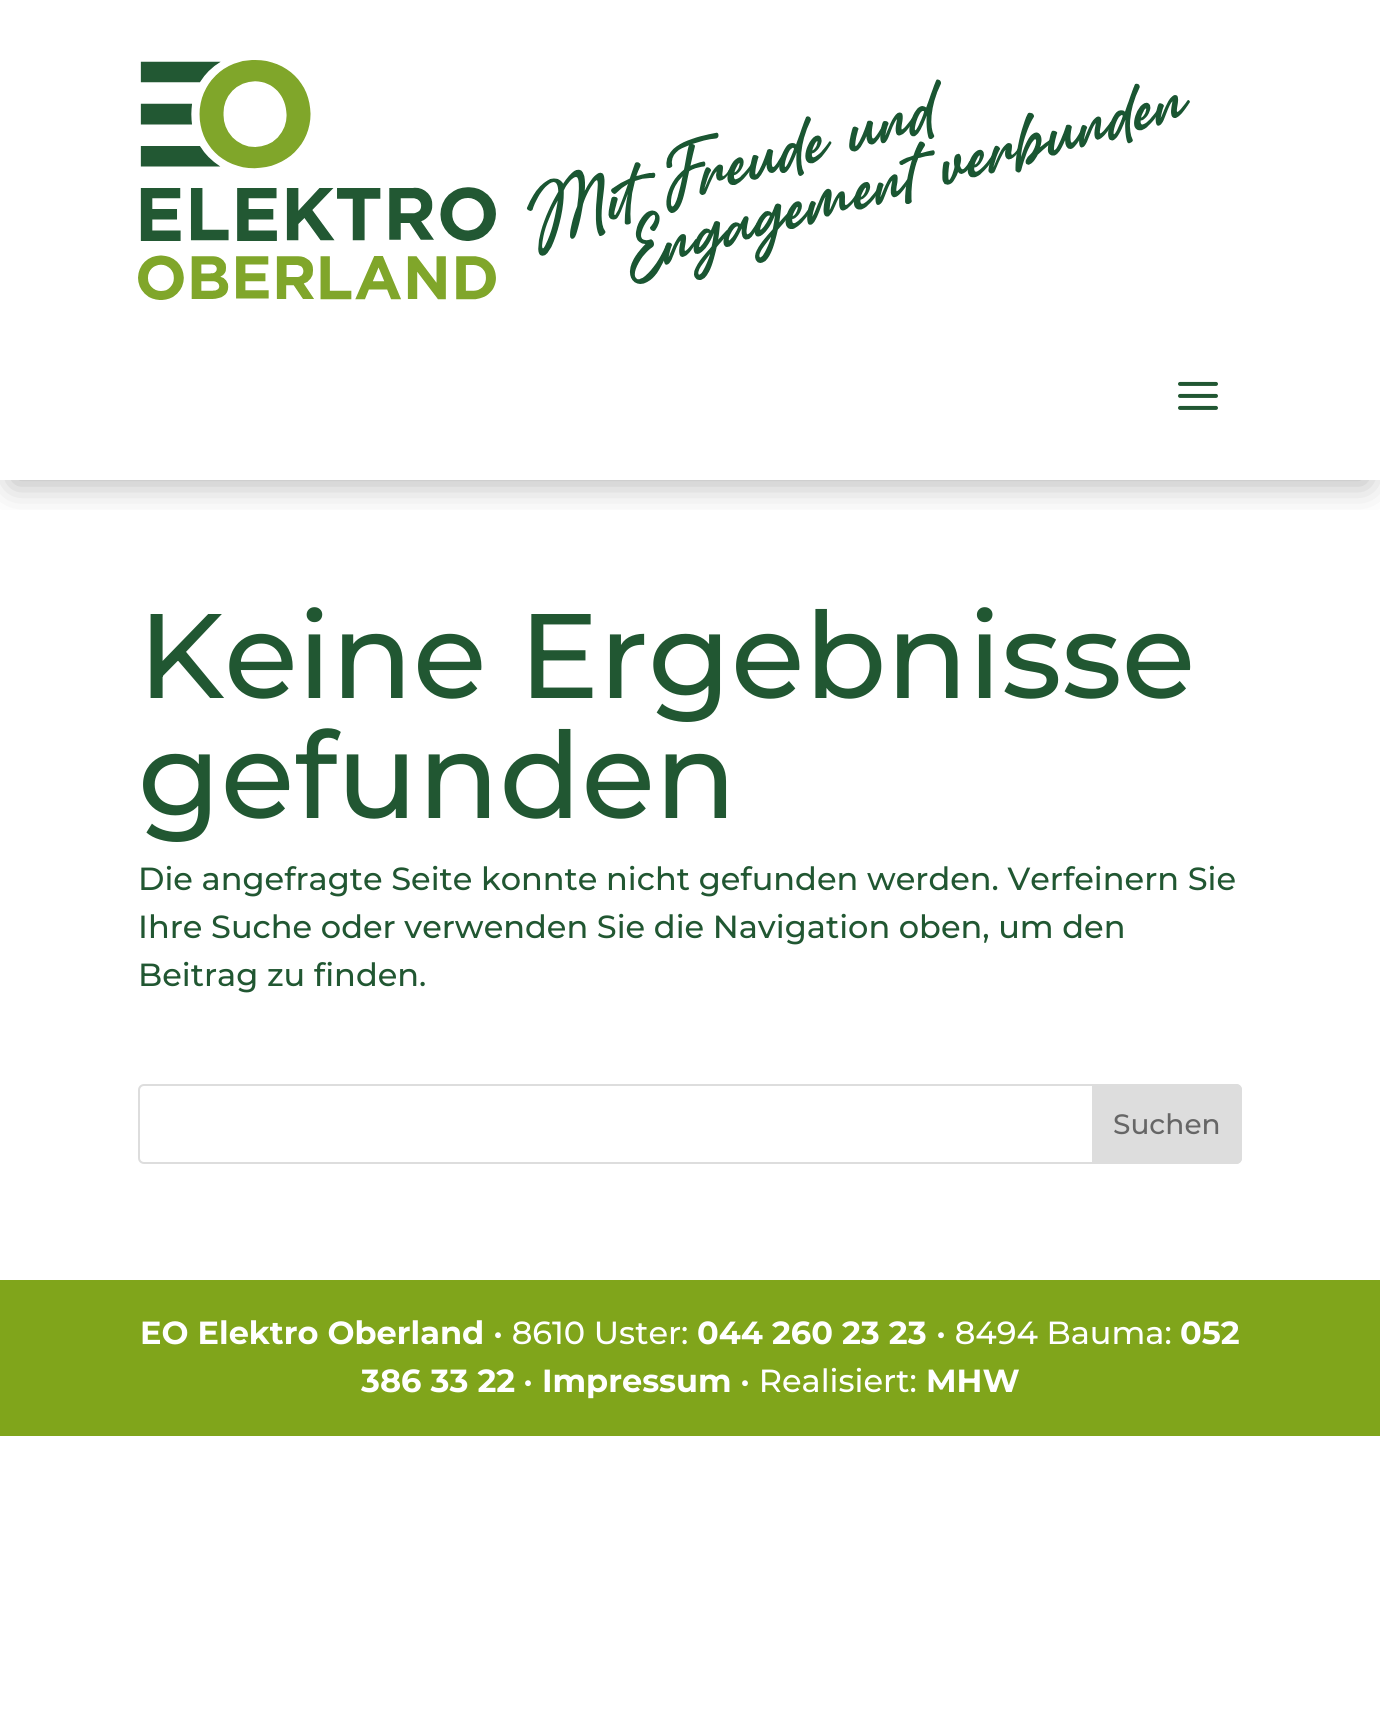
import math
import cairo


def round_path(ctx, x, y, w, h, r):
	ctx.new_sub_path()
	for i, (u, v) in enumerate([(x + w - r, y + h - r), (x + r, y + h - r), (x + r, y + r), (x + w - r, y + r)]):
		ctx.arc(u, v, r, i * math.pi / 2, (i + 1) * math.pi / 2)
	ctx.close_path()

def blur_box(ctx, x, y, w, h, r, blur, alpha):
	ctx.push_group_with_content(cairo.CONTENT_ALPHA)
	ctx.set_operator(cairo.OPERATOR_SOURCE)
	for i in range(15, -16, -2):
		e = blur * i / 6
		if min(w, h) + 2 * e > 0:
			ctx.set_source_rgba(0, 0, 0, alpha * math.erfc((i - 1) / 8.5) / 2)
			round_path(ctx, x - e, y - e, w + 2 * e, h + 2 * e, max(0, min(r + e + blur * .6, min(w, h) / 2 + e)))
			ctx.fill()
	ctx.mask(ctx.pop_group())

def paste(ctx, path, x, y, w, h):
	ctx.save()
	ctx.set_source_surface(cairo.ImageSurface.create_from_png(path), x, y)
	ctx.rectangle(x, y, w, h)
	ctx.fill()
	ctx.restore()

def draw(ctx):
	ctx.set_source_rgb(1, 1, 1)
	ctx.paint()
	ctx.save()
	ctx.rectangle(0, 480, 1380, 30)
	ctx.clip()
	ctx.set_source_rgb(0, 0, 0)
	blur_box(ctx, 12, 28, 1356, 456, 0, 17, 0.3)
	ctx.restore()
	paste(ctx, 'media/1.png', 138, 60, 1052, 240)
	paste(ctx, 'media/2.png', 1178, 381, 40, 29)
	ctx.select_font_face('Montserrat Medium')
	ctx.set_font_size(120)
	ctx.set_source_rgb(0.129, 0.341, 0.196)
	ctx.move_to(138, 698)
	ctx.show_text('Keine Ergebnisse')
	ctx.move_to(138, 818)
	ctx.show_text('gefunden')
	ctx.set_font_size(32)
	for x, y, s in [
		(138, 890, 'Die angefragte Seite konnte nicht gefunden werden. Verfeinern Sie'),
		(138, 938, 'Ihre Suche oder verwenden Sie die Navigation oben, um den'),
		(138, 986, 'Beitrag zu finden.'),
	]:
		ctx.move_to(x, y)
		ctx.show_text(s)
	round_path(ctx, 139, 1085, 1102, 78, 5)
	ctx.set_source_rgb(0.867, 0.867, 0.867)
	ctx.stroke()
	ctx.new_path()
	ctx.move_to(1093, 1085)
	ctx.line_to(1236, 1085)
	ctx.curve_to(1239, 1085, 1241, 1087, 1241, 1090)
	ctx.line_to(1241, 1158)
	ctx.curve_to(1241, 1161, 1239, 1163, 1236, 1163)
	ctx.line_to(1093, 1163)
	ctx.close_path()
	ctx.fill_preserve()
	ctx.stroke()
	ctx.set_font_size(28)
	ctx.set_source_rgb(0.4, 0.4, 0.4)
	ctx.move_to(1113, 1134)
	ctx.show_text('Suchen')
	ctx.set_source_rgb(0.502, 0.647, 0.106)
	ctx.rectangle(0, 1280, 1380, 156)
	ctx.fill()
	ctx.select_font_face('Montserrat', cairo.FONT_SLANT_NORMAL, cairo.FONT_WEIGHT_BOLD)
	ctx.set_font_size(32)
	ctx.set_source_rgb(1, 1, 1)
	ctx.move_to(140, 1344)
	ctx.show_text('EO Elektro Oberland')
	ctx.select_font_face('Montserrat Medium')
	ctx.move_to(493, 1344)
	ctx.show_text('• 8610 Uster:')
	ctx.select_font_face('Montserrat', cairo.FONT_SLANT_NORMAL, cairo.FONT_WEIGHT_BOLD)
	ctx.move_to(697, 1344)
	ctx.show_text('044 260 23 23')
	ctx.select_font_face('Montserrat Medium')
	ctx.move_to(936, 1344)
	ctx.show_text('• 8494 Bauma:')
	ctx.select_font_face('Montserrat', cairo.FONT_SLANT_NORMAL, cairo.FONT_WEIGHT_BOLD)
	ctx.move_to(1180, 1344)
	ctx.show_text('052')
	ctx.move_to(361, 1392)
	ctx.show_text('386 33 22')
	ctx.select_font_face('Montserrat Medium')
	ctx.move_to(523, 1392)
	ctx.show_text('•')
	ctx.select_font_face('Montserrat', cairo.FONT_SLANT_NORMAL, cairo.FONT_WEIGHT_BOLD)
	ctx.move_to(542, 1392)
	ctx.show_text('Impressum')
	ctx.select_font_face('Montserrat Medium')
	ctx.move_to(740, 1392)
	ctx.show_text('• Realisiert:')
	ctx.select_font_face('Montserrat', cairo.FONT_SLANT_NORMAL, cairo.FONT_WEIGHT_BOLD)
	ctx.move_to(926, 1392)
	ctx.show_text('MHW')


surface = cairo.ImageSurface(cairo.FORMAT_RGB24, 1380, 1709)
ctx = cairo.Context(surface)
options = cairo.FontOptions()
options.set_hint_metrics(cairo.HINT_METRICS_OFF)
options.set_hint_style(cairo.HINT_STYLE_NONE)
ctx.set_font_options(options)
ctx.set_miter_limit(4)
draw(ctx)
surface.write_to_png('image.png')
